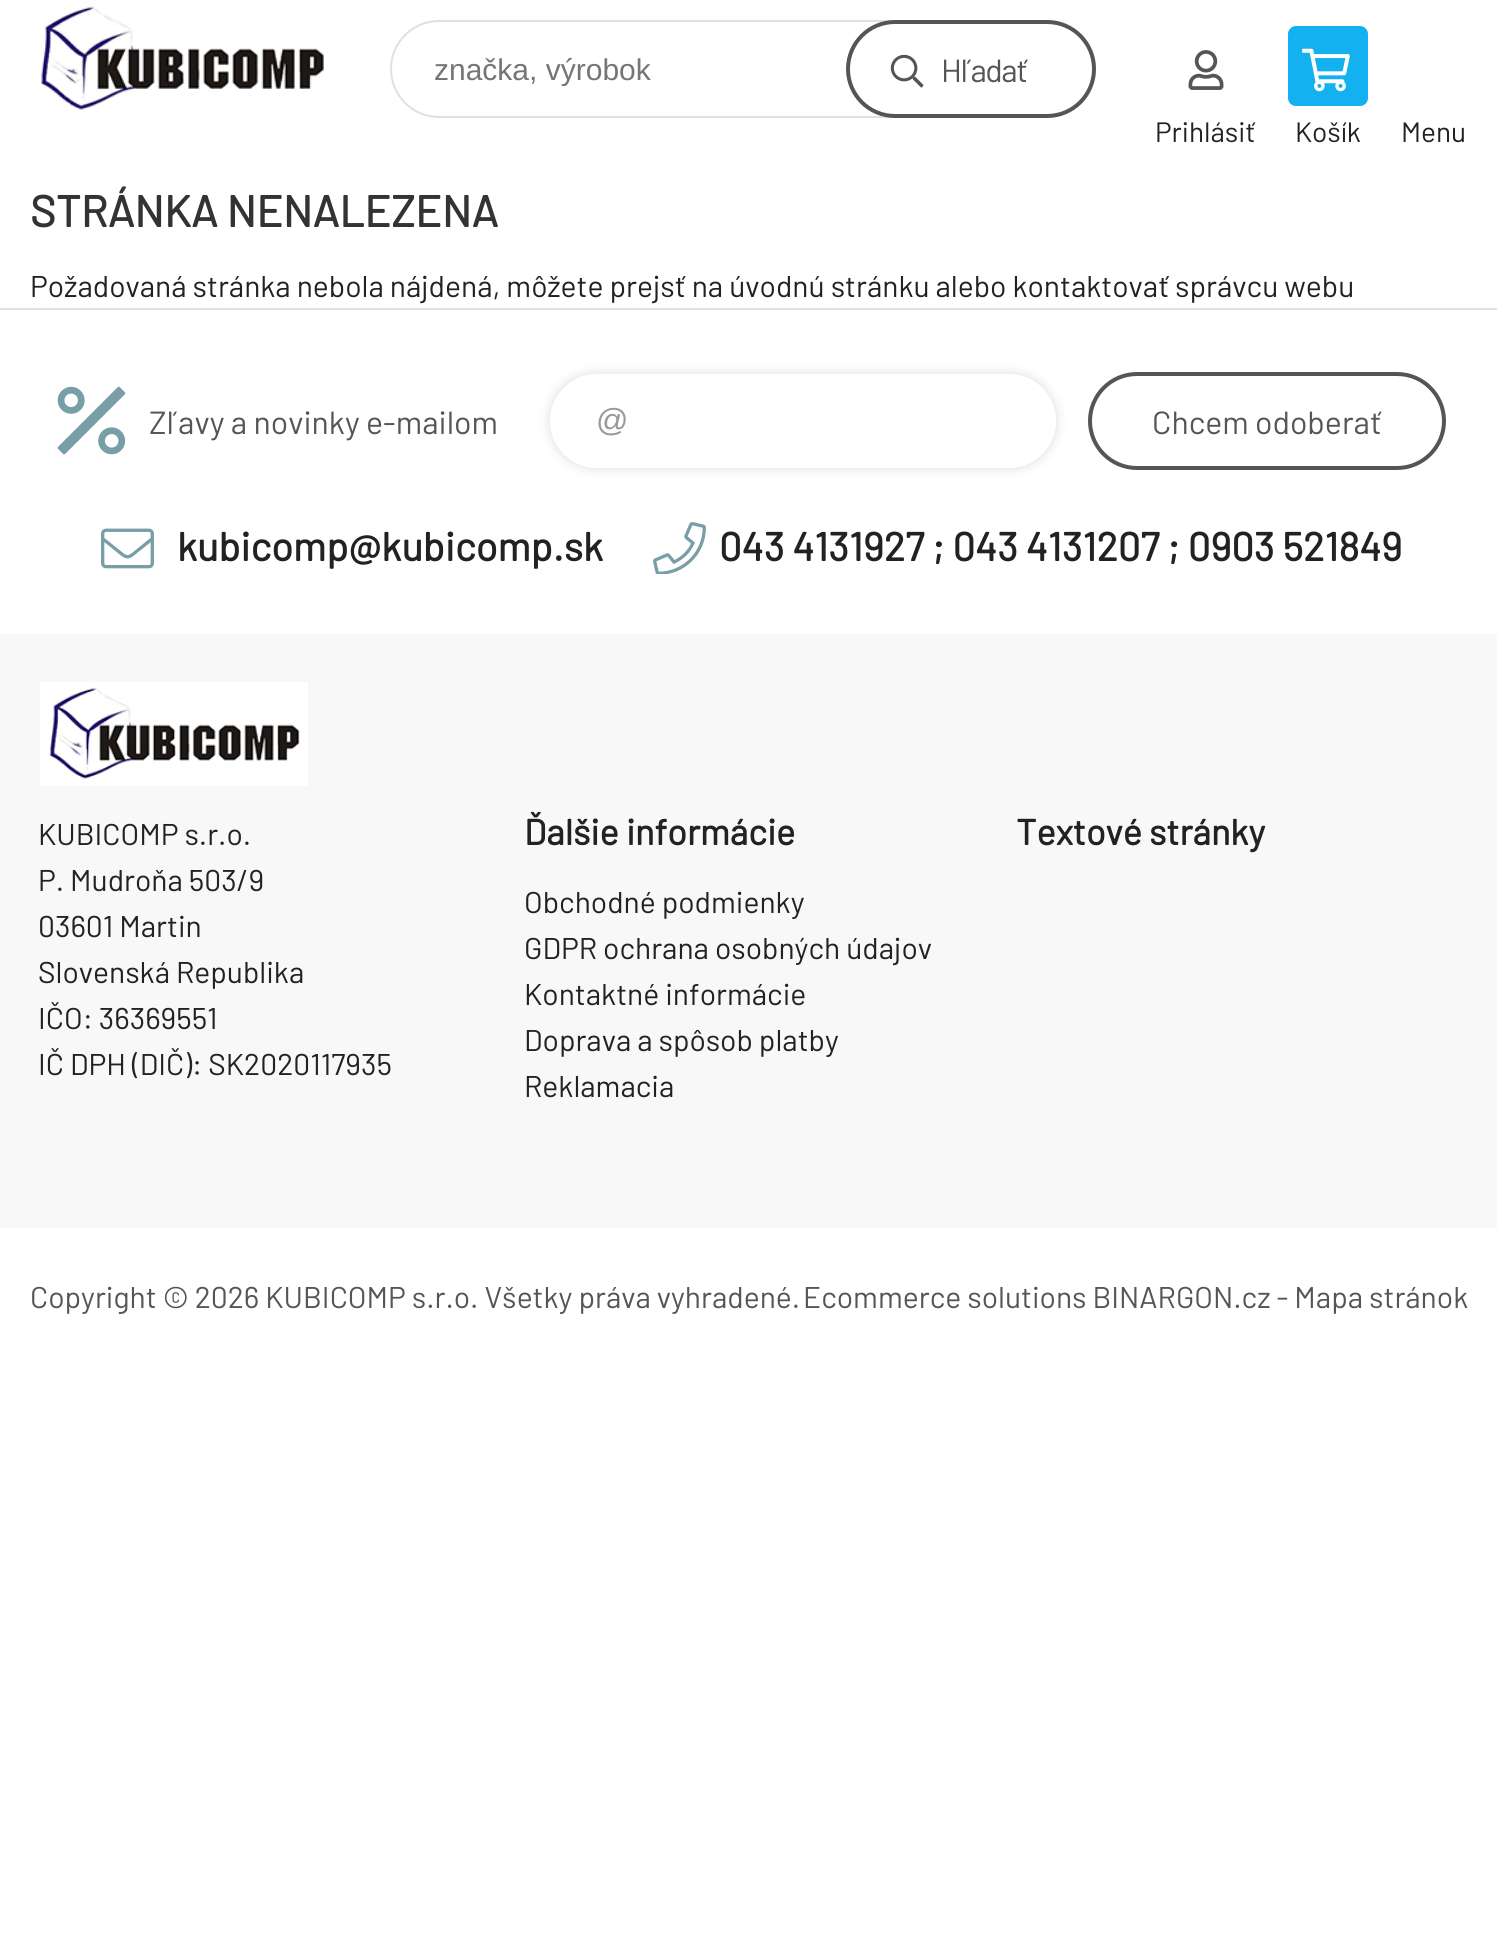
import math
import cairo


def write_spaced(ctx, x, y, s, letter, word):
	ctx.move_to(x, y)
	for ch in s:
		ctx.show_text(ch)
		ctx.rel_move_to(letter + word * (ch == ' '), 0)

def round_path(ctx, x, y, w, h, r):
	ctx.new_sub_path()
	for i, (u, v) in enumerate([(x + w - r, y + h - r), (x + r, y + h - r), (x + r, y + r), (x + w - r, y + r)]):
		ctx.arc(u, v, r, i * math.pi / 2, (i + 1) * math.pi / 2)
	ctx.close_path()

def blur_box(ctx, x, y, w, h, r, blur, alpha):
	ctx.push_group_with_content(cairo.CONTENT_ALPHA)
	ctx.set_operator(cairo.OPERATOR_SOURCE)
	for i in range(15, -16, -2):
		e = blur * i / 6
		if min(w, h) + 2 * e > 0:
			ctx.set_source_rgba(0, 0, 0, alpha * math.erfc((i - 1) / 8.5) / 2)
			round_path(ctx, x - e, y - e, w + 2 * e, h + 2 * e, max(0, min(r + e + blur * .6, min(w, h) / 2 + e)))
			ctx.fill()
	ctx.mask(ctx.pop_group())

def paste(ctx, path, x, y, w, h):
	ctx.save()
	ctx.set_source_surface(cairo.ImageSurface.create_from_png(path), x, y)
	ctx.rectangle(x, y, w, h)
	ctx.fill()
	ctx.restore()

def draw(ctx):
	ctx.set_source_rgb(1, 1, 1)
	ctx.paint()
	paste(ctx, 'media/1.png', 41, 4, 283, 106)
	round_path(ctx, 391, 21, 704, 96, 48)
	ctx.set_source_rgb(0.878, 0.878, 0.878)
	ctx.stroke()
	ctx.save()
	ctx.rectangle(434, 52, 400, 34)
	ctx.clip()
	ctx.select_font_face('Liberation Sans')
	ctx.set_font_size(30)
	ctx.set_source_rgb(0.459, 0.459, 0.459)
	ctx.move_to(434, 80)
	ctx.show_text('značka, výrobok')
	ctx.restore()
	paste(ctx, 'media/2.png', 890, 54, 34, 34)
	round_path(ctx, 848, 22, 246, 94, 47)
	ctx.set_source_rgb(0.333, 0.333, 0.333)
	ctx.set_line_width(4)
	ctx.stroke()
	ctx.select_font_face('Barlow')
	ctx.set_font_size(32)
	write_spaced(ctx, 941, 82, 'Hľadať', -1.5, 0)
	paste(ctx, 'media/3.png', 1188, 50, 36, 40)
	ctx.set_font_size(28)
	ctx.set_source_rgb(0.133, 0.133, 0.133)
	ctx.move_to(1155, 142)
	ctx.show_text('Prihlásiť')
	ctx.set_source_rgb(0.078, 0.694, 0.937)
	round_path(ctx, 1288, 26, 80, 80, 8)
	ctx.fill()
	paste(ctx, 'media/4.png', 1302, 48, 48, 44)
	ctx.set_source_rgb(0.133, 0.133, 0.133)
	ctx.move_to(1295, 142)
	ctx.show_text('Košík')
	ctx.move_to(1401, 142)
	ctx.show_text('Menu')
	ctx.select_font_face('Barlow', cairo.FONT_SLANT_NORMAL, cairo.FONT_WEIGHT_BOLD)
	ctx.set_font_size(44)
	ctx.set_source_rgb(0.2, 0.2, 0.2)
	ctx.move_to(30, 227)
	ctx.show_text('STRÁNKA NENALEZENA')
	ctx.select_font_face('Barlow')
	ctx.set_font_size(30)
	ctx.set_source_rgb(0.133, 0.133, 0.133)
	ctx.move_to(30, 297)
	ctx.show_text('Požadovaná stránka nebola nájdená, môžete prejsť na úvodnú stránku alebo kontaktovať správcu webu')
	ctx.set_source_rgb(0.878, 0.878, 0.878)
	ctx.rectangle(0, 308, 1497, 2)
	ctx.fill()
	paste(ctx, 'media/5.png', 57, 386, 69, 69)
	ctx.set_font_size(32)
	ctx.set_source_rgb(0.333, 0.333, 0.333)
	ctx.move_to(149, 434)
	ctx.show_text('Zľavy a novinky e-mailom')
	ctx.set_source_rgb(0, 0, 0)
	blur_box(ctx, 548, 372, 510, 98, 49, 5, 0.1)
	ctx.set_source_rgb(1, 1, 1)
	round_path(ctx, 549, 373, 508, 96, 48)
	ctx.fill_preserve()
	ctx.set_source_rgb(0.941, 0.941, 0.941)
	ctx.set_line_width(2)
	ctx.stroke()
	ctx.select_font_face('Liberation Sans')
	ctx.set_source_rgb(0.6, 0.6, 0.6)
	ctx.move_to(596, 431)
	ctx.show_text('@')
	round_path(ctx, 1090, 374, 354, 94, 47)
	ctx.set_source_rgb(0.333, 0.333, 0.333)
	ctx.set_line_width(4)
	ctx.stroke()
	ctx.select_font_face('Barlow')
	ctx.move_to(1152, 434)
	ctx.show_text('Chcem')
	ctx.move_to(1255, 434)
	ctx.show_text('odoberať')
	paste(ctx, 'media/6.png', 101, 528, 53, 41)
	ctx.select_font_face('Barlow', cairo.FONT_SLANT_NORMAL, cairo.FONT_WEIGHT_BOLD)
	ctx.set_font_size(40)
	ctx.set_source_rgb(0.133, 0.133, 0.133)
	ctx.move_to(177, 561)
	ctx.show_text('kubicomp@kubicomp.sk')
	paste(ctx, 'media/7.png', 653, 522, 53, 52)
	ctx.move_to(719, 561)
	ctx.show_text('043 4131927 ; 043 4131207 ; 0903 521849')
	ctx.set_source_rgb(0.969, 0.969, 0.969)
	ctx.rectangle(0, 634, 1497, 594)
	ctx.fill()
	paste(ctx, 'media/8.png', 40, 682, 268, 104)
	ctx.select_font_face('Barlow')
	ctx.set_font_size(30)
	ctx.set_source_rgb(0.133, 0.133, 0.133)
	for x, y, s in [
		(38, 845, 'KUBICOMP s.r.o.'),
		(38, 891, 'P. Mudroňa 503/9'),
		(38, 937, '03601 Martin'),
		(38, 983, 'Slovenská Republika'),
		(38, 1029, 'IČO: 36369551'),
		(38, 1075, 'IČ DPH (DIČ): SK2020117935'),
	]:
		ctx.move_to(x, y)
		ctx.show_text(s)
	ctx.select_font_face('Barlow', cairo.FONT_SLANT_NORMAL, cairo.FONT_WEIGHT_BOLD)
	ctx.set_font_size(36)
	ctx.move_to(524, 845)
	ctx.show_text('Ďalšie informácie')
	ctx.select_font_face('Barlow')
	ctx.set_font_size(30)
	for x, y, s in [
		(524, 913, 'Obchodné podmienky'),
		(524, 959, 'GDPR ochrana osobných údajov'),
		(524, 1005, 'Kontaktné informácie'),
		(524, 1051, 'Doprava a spôsob platby'),
		(524, 1097, 'Reklamacia'),
	]:
		ctx.move_to(x, y)
		ctx.show_text(s)
	ctx.select_font_face('Barlow', cairo.FONT_SLANT_NORMAL, cairo.FONT_WEIGHT_BOLD)
	ctx.set_font_size(36)
	ctx.move_to(1016, 845)
	ctx.show_text('Textové stránky')
	ctx.select_font_face('Barlow')
	ctx.set_font_size(30)
	ctx.set_source_rgb(0.333, 0.333, 0.333)
	ctx.move_to(30, 1308)
	ctx.show_text('Copyright © 2026 KUBICOMP s.r.o. Všetky práva vyhradené.')
	ctx.move_to(803, 1308)
	ctx.show_text('Ecommerce solutions BINARGON.cz - Mapa stránok')


surface = cairo.ImageSurface(cairo.FORMAT_RGB24, 1497, 1947)
ctx = cairo.Context(surface)
options = cairo.FontOptions()
options.set_hint_metrics(cairo.HINT_METRICS_OFF)
options.set_hint_style(cairo.HINT_STYLE_NONE)
ctx.set_font_options(options)
ctx.set_miter_limit(4)
draw(ctx)
surface.write_to_png('image.png')
